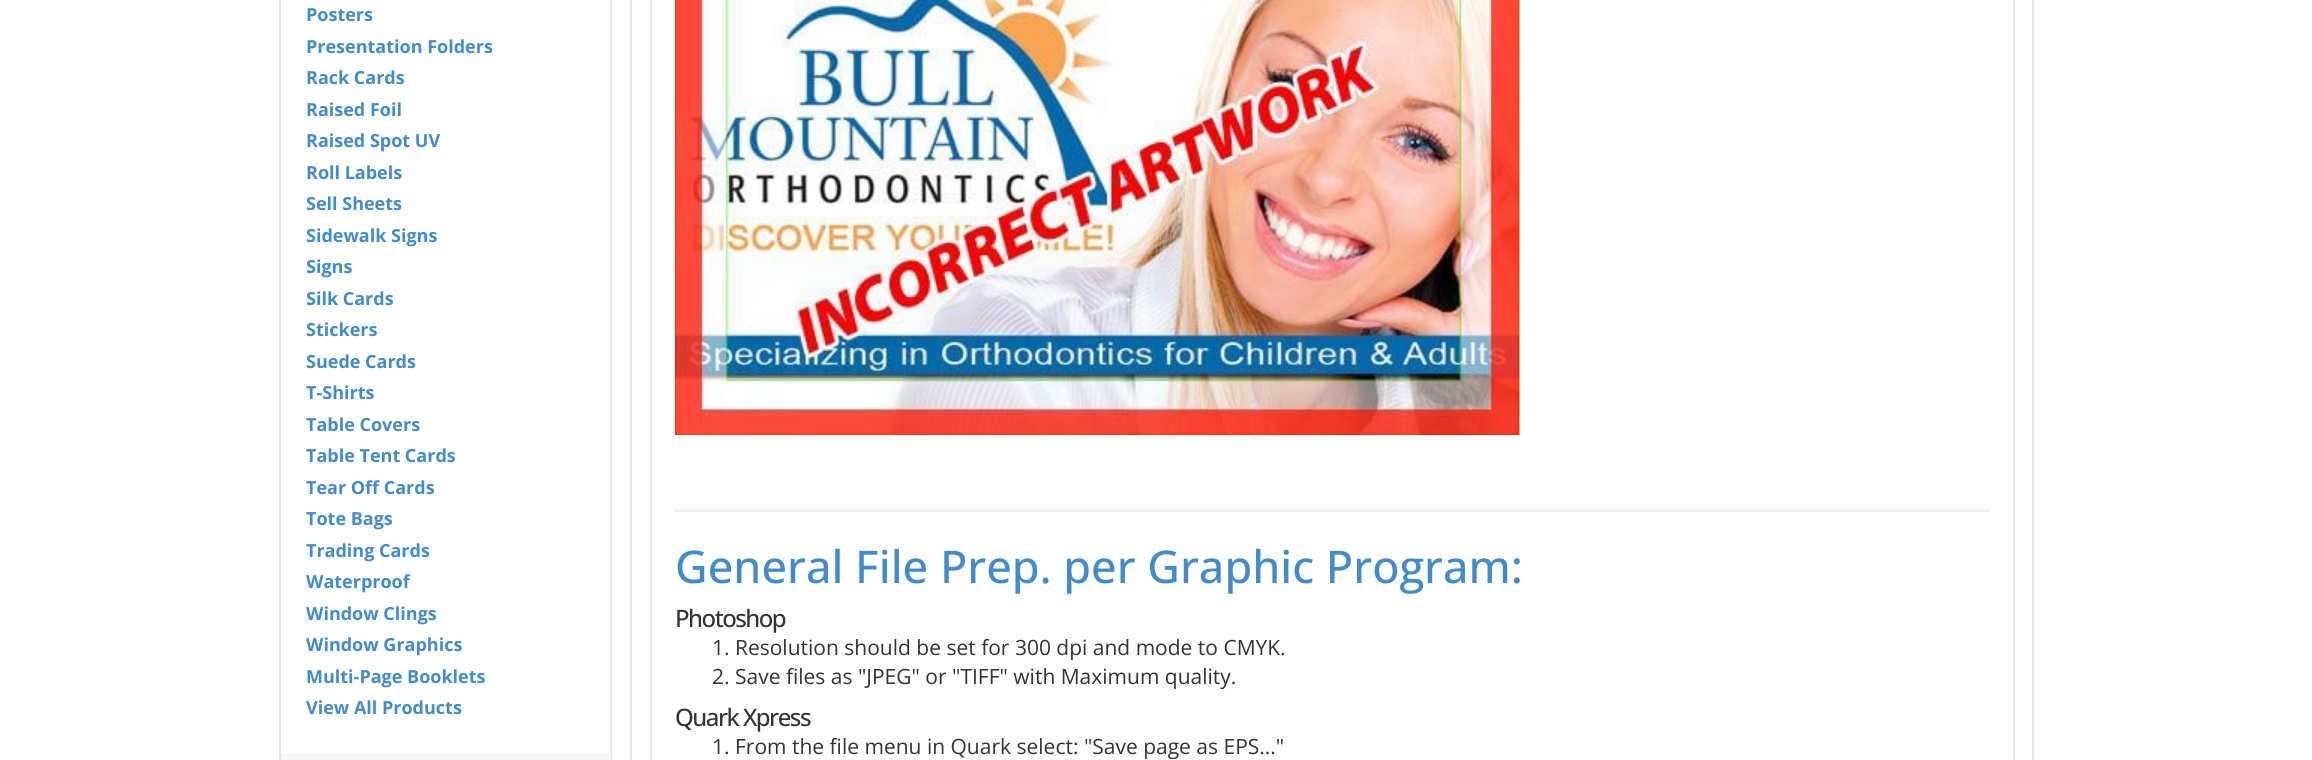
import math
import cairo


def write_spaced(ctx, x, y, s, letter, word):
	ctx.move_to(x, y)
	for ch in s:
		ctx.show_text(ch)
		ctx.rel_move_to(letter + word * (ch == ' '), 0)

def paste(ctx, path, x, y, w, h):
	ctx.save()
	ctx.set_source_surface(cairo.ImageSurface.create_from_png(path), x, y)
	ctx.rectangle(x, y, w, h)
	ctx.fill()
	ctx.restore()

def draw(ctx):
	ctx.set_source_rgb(1, 1, 1)
	ctx.paint()
	ctx.rectangle(280, -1, 331, 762)
	ctx.set_source_rgb(0.906, 0.906, 0.906)
	ctx.stroke()
	ctx.select_font_face('Open Sans', cairo.FONT_SLANT_NORMAL, cairo.FONT_WEIGHT_BOLD)
	ctx.set_font_size(18)
	ctx.set_source_rgb(0.259, 0.545, 0.792)
	for x, y, s in [
		(306, 21, 'Posters'),
		(306, 53, 'Presentation Folders'),
		(306, 84, 'Rack Cards'),
		(306, 116, 'Raised Foil'),
		(306, 147, 'Raised Spot UV'),
		(306, 179, 'Roll Labels'),
		(306, 210, 'Sell Sheets'),
		(306, 242, 'Sidewalk Signs'),
		(306, 273, 'Signs'),
		(306, 305, 'Silk Cards'),
		(306, 336, 'Stickers'),
		(306, 368, 'Suede Cards'),
		(306, 399, 'T-Shirts'),
		(306, 431, 'Table Covers'),
		(306, 462, 'Table Tent Cards'),
		(306, 494, 'Tear Off Cards'),
		(306, 525, 'Tote Bags'),
		(306, 557, 'Trading Cards'),
		(306, 588, 'Waterproof'),
		(306, 620, 'Window Clings'),
		(306, 651, 'Window Graphics'),
		(306, 683, 'Multi-Page Booklets'),
		(306, 714, 'View All Products'),
	]:
		ctx.move_to(x, y)
		ctx.show_text(s)
	ctx.set_source_rgb(0.969, 0.969, 0.969)
	ctx.rectangle(281, 753, 330, 7)
	ctx.fill()
	ctx.rectangle(631, -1, 1402, 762)
	ctx.set_source_rgb(0.906, 0.906, 0.906)
	ctx.stroke()
	ctx.rectangle(651, -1, 1363, 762)
	ctx.set_source_rgb(0.902, 0.902, 0.902)
	ctx.stroke()
	paste(ctx, 'media/1.png', 675, 0, 845, 435)
	ctx.set_source_rgb(0.937, 0.937, 0.937)
	ctx.rectangle(675, 509, 1314, 3)
	ctx.fill()
	ctx.select_font_face('Open Sans Medium')
	ctx.set_font_size(45)
	ctx.set_source_rgb(0.259, 0.545, 0.792)
	ctx.move_to(675, 583)
	ctx.show_text('General File Prep. per Graphic Program:')
	ctx.set_font_size(24)
	ctx.set_source_rgb(0.2, 0.2, 0.2)
	write_spaced(ctx, 675, 627, 'Photoshop', -1.5, 0)
	ctx.select_font_face('Open Sans')
	ctx.set_font_size(21)
	ctx.move_to(712, 655)
	ctx.show_text('1. Resolution should be set for 300 dpi and mode to CMYK.')
	ctx.move_to(712, 684)
	ctx.show_text('2. Save files as "JPEG" or "TIFF" with Maximum quality.')
	ctx.select_font_face('Open Sans Medium')
	ctx.set_font_size(24)
	write_spaced(ctx, 675, 726, 'Quark Xpress', -1.5, 0)
	ctx.select_font_face('Open Sans')
	ctx.set_font_size(21)
	ctx.move_to(712, 754)
	ctx.show_text('1. From the file menu in Quark select: "Save page as EPS..."')


surface = cairo.ImageSurface(cairo.FORMAT_RGB24, 2312, 760)
ctx = cairo.Context(surface)
options = cairo.FontOptions()
options.set_hint_metrics(cairo.HINT_METRICS_OFF)
options.set_hint_style(cairo.HINT_STYLE_NONE)
ctx.set_font_options(options)
ctx.set_miter_limit(4)
draw(ctx)
surface.write_to_png('image.png')
